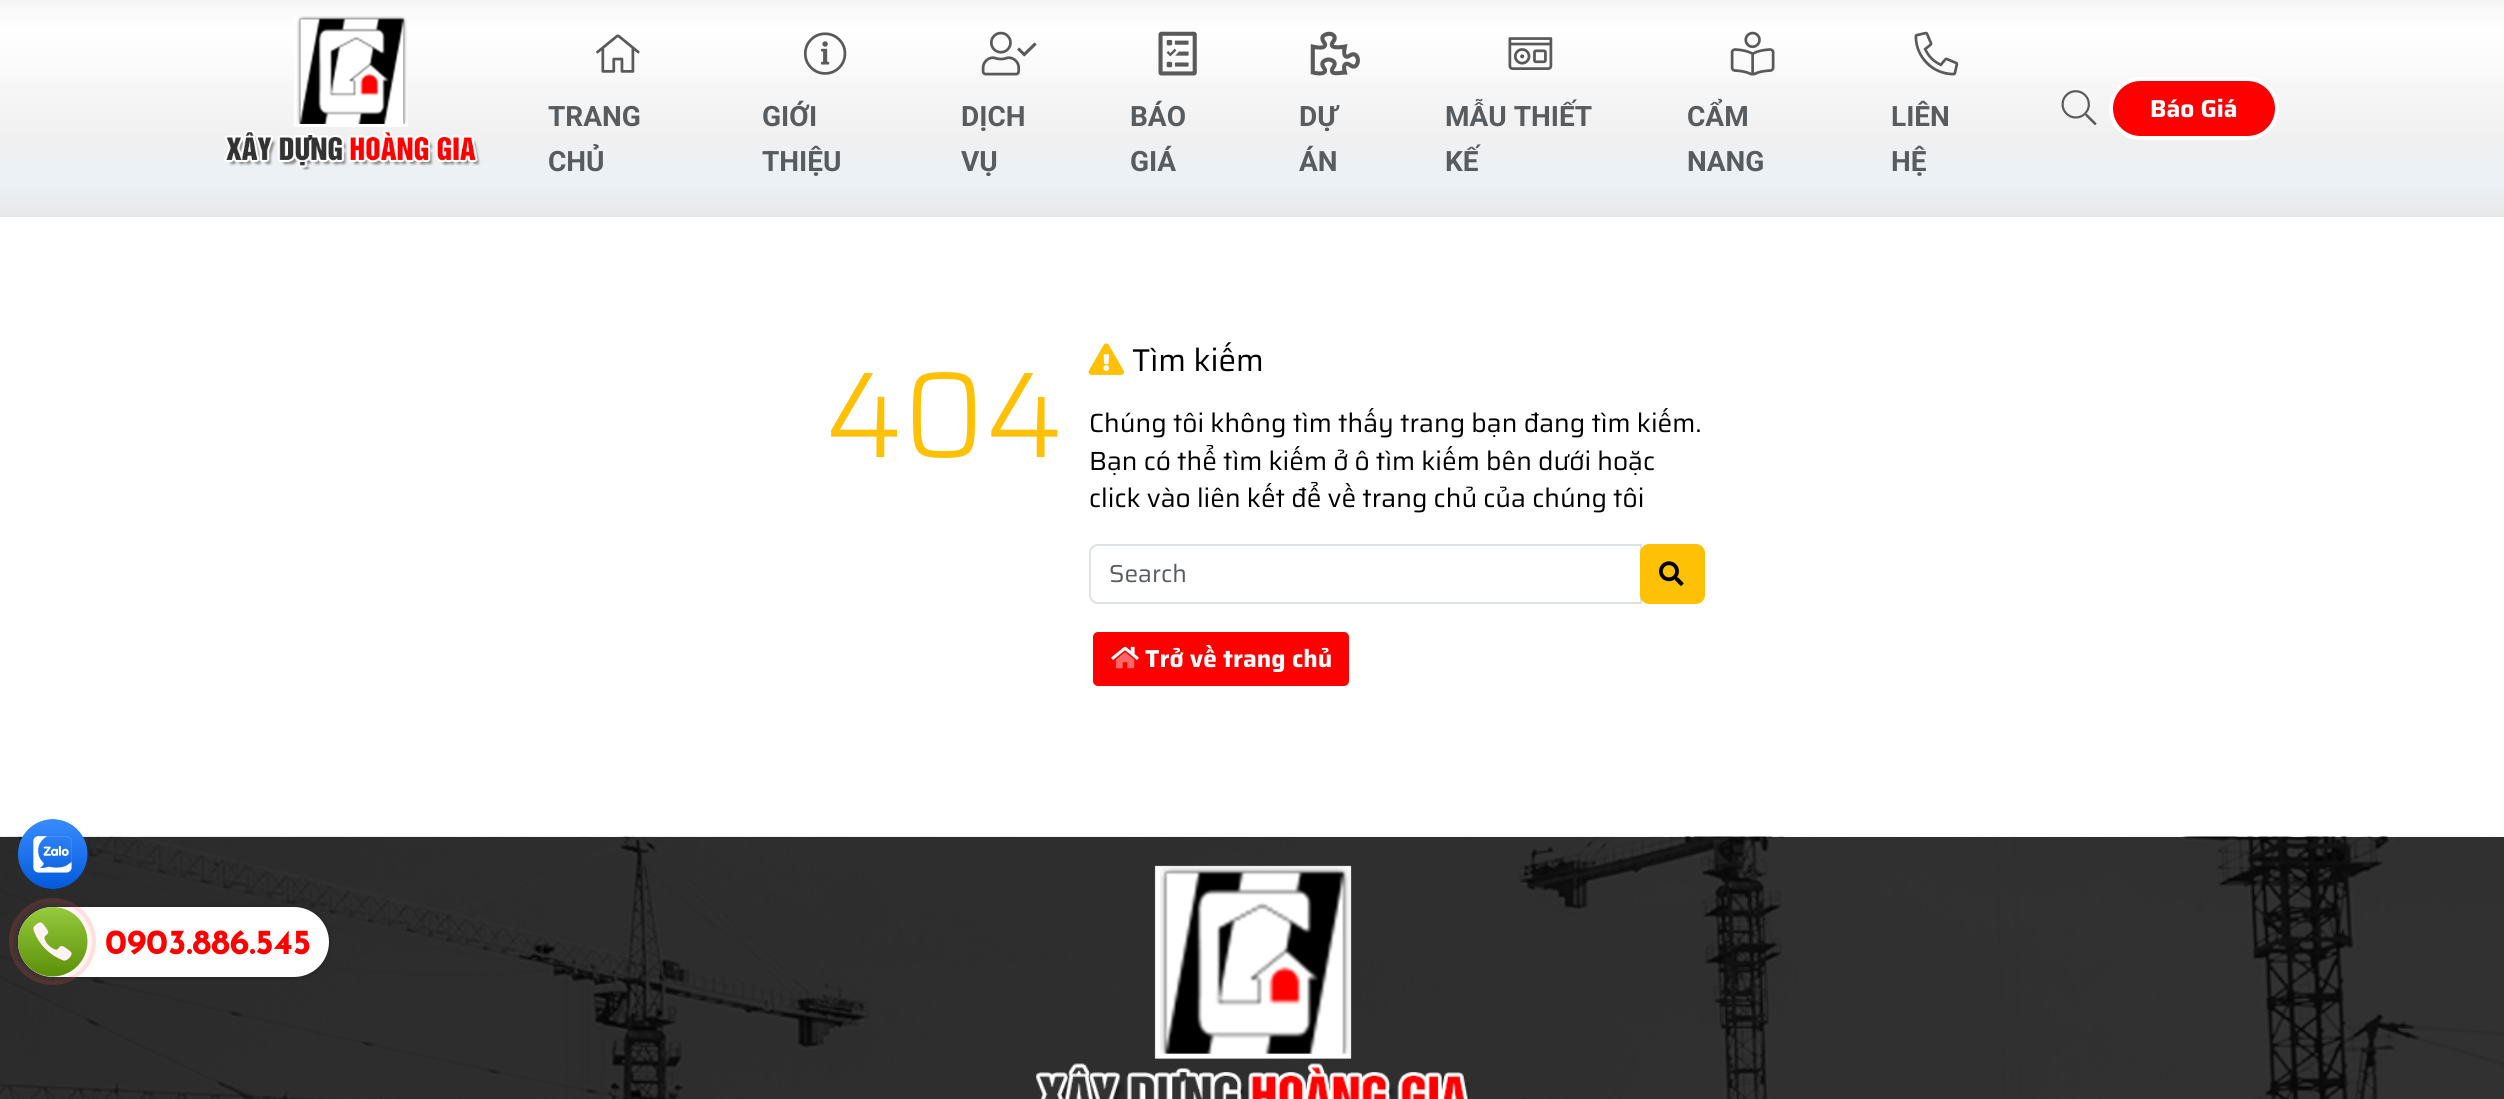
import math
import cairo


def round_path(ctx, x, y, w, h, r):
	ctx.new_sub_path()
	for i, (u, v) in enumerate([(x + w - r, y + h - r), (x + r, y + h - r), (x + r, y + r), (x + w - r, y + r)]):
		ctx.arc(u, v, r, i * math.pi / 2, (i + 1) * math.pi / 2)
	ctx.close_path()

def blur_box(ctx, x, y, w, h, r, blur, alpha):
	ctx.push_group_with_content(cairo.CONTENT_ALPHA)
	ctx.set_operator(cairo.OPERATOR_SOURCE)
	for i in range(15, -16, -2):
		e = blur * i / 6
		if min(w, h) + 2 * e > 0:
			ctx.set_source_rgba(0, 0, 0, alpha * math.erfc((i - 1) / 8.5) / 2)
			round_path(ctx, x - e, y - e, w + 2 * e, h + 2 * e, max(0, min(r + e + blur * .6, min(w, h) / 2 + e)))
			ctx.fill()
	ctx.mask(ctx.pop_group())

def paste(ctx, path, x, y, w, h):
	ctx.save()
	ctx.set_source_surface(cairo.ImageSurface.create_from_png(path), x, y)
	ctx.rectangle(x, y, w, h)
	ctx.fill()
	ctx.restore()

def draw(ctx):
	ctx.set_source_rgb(1, 1, 1)
	ctx.paint()
	gradient = cairo.LinearGradient(1252, 217, 1252, 0)
	gradient.add_color_stop_rgba(0, 0.906, 0.906, 0.906, 1)
	gradient.add_color_stop_rgba(0.15, 0.922, 0.945, 0.965, 1)
	gradient.add_color_stop_rgba(0.37, 0.941, 0.941, 0.941, 1)
	gradient.add_color_stop_rgba(0.86, 1, 1, 1, 1)
	gradient.add_color_stop_rgba(1, 0.965, 0.965, 0.965, 1)
	ctx.set_source(gradient)
	ctx.rectangle(0, 0, 2504, 217)
	ctx.fill()
	paste(ctx, 'media/1.png', 224, 16, 257, 154)
	paste(ctx, 'media/2.png', 596, 34, 44, 39)
	ctx.select_font_face('Roboto', cairo.FONT_SLANT_NORMAL, cairo.FONT_WEIGHT_BOLD)
	ctx.set_font_size(28)
	ctx.set_source_rgb(0.349, 0.361, 0.373)
	ctx.move_to(548, 126)
	ctx.show_text('TRANG')
	ctx.move_to(548, 171)
	ctx.show_text('CHỦ')
	paste(ctx, 'media/3.png', 803, 32, 44, 43)
	ctx.move_to(762, 126)
	ctx.show_text('GIỚI')
	ctx.move_to(762, 171)
	ctx.show_text('THIỆU')
	paste(ctx, 'media/4.png', 981, 31, 56, 45)
	ctx.move_to(961, 126)
	ctx.show_text('DỊCH')
	ctx.move_to(961, 171)
	ctx.show_text('VỤ')
	paste(ctx, 'media/5.png', 1158, 31, 39, 45)
	ctx.move_to(1130, 126)
	ctx.show_text('BÁO')
	ctx.move_to(1130, 171)
	ctx.show_text('GIÁ')
	paste(ctx, 'media/6.png', 1310, 31, 50, 45)
	ctx.move_to(1299, 126)
	ctx.show_text('DỰ')
	ctx.move_to(1299, 171)
	ctx.show_text('ÁN')
	paste(ctx, 'media/7.png', 1508, 37, 45, 33)
	ctx.move_to(1445, 126)
	ctx.show_text('MẪU THIẾT')
	ctx.move_to(1445, 171)
	ctx.show_text('KẾ')
	paste(ctx, 'media/8.png', 1730, 31, 45, 45)
	ctx.move_to(1687, 126)
	ctx.show_text('CẨM')
	ctx.move_to(1687, 171)
	ctx.show_text('NANG')
	paste(ctx, 'media/9.png', 1914, 31, 45, 45)
	ctx.move_to(1891, 126)
	ctx.show_text('LIÊN')
	ctx.move_to(1891, 171)
	ctx.show_text('HỆ')
	paste(ctx, 'media/10.png', 2061, 90, 36, 35)
	ctx.set_source_rgb(1, 0, 0)
	round_path(ctx, 2111, 79, 166, 59, 29.5)
	ctx.fill_preserve()
	ctx.set_source_rgb(1, 1, 1)
	ctx.set_line_width(4)
	ctx.stroke()
	ctx.select_font_face('Saira', cairo.FONT_SLANT_NORMAL, cairo.FONT_WEIGHT_BOLD)
	ctx.set_font_size(24.5)
	ctx.move_to(2150, 117)
	ctx.show_text('Báo Giá')
	ctx.select_font_face('Saira Light')
	ctx.set_font_size(122)
	ctx.set_source_rgb(1, 0.757, 0.027)
	ctx.move_to(825, 457)
	ctx.show_text('404')
	paste(ctx, 'media/11.png', 1088, 343, 36, 32)
	ctx.select_font_face('Saira')
	ctx.set_font_size(31.5)
	ctx.set_source_rgb(0, 0, 0)
	ctx.move_to(1132, 371)
	ctx.show_text('Tìm kiếm')
	ctx.set_font_size(26.25)
	for x, y, s in [
		(1089, 432, 'Chúng tôi không tìm thấy trang bạn đang tìm kiếm.'),
		(1089, 470, 'Bạn có thể tìm kiếm ở ô tìm kiếm bên dưới hoặc'),
		(1089, 507, 'click vào liên kết để về trang chủ của chúng tôi'),
	]:
		ctx.move_to(x, y)
		ctx.show_text(s)
	ctx.new_path()
	ctx.move_to(1098, 545)
	ctx.line_to(1641, 545)
	ctx.line_to(1641, 603)
	ctx.line_to(1098, 603)
	ctx.curve_to(1093.5, 603, 1090, 599.5, 1090, 595)
	ctx.line_to(1090, 553)
	ctx.curve_to(1090, 548.5, 1093.5, 545, 1098, 545)
	ctx.close_path()
	ctx.set_source_rgb(0.871, 0.886, 0.902)
	ctx.set_line_width(2)
	ctx.stroke()
	ctx.set_font_size(24.5)
	ctx.set_source_rgb(0.349, 0.361, 0.373)
	ctx.move_to(1109, 582)
	ctx.show_text('Search')
	ctx.set_source_rgb(1, 0.757, 0.027)
	round_path(ctx, 1641, 545, 63, 58, 8)
	ctx.fill_preserve()
	ctx.stroke()
	paste(ctx, 'media/12.png', 1659, 561, 25, 25)
	ctx.set_source_rgb(1, 0, 0)
	round_path(ctx, 1091, 630, 260, 58, 7)
	ctx.fill_preserve()
	ctx.set_source_rgb(1, 1, 1)
	ctx.set_line_width(4)
	ctx.stroke()
	paste(ctx, 'media/13.png', 1111, 646, 28, 14)
	paste(ctx, 'media/14.png', 1115, 652, 20, 17)
	ctx.select_font_face('Saira', cairo.FONT_SLANT_NORMAL, cairo.FONT_WEIGHT_BOLD)
	ctx.move_to(1145, 667)
	ctx.show_text('Trở về trang chủ')
	paste(ctx, 'media/15.png', 0, 836, 2504, 263)
	paste(ctx, 'media/16.png', 1035, 865, 435, 234)
	paste(ctx, 'media/17.png', 18, 819, 70, 70)
	ctx.set_source_rgb(0, 0, 0)
	blur_box(ctx, 18, 907, 311, 70, 35, 2, 0.34)
	ctx.set_source_rgb(1, 1, 1)
	round_path(ctx, 18, 907, 311, 70, 35)
	ctx.fill()
	paste(ctx, 'media/18.png', 18, 907, 70, 70)
	ctx.set_source_rgba(1, 0.514, 0.514, 0.1)
	ctx.arc(52.5, 941.5, 43.5, 0, 2 * math.pi)
	ctx.fill()
	ctx.arc(52.5, 941.5, 41.5, 0, 2 * math.pi)
	ctx.set_source_rgba(0.988, 0.125, 0.125, 0.1)
	ctx.stroke()
	ctx.select_font_face('Reem Kufi', cairo.FONT_SLANT_NORMAL, cairo.FONT_WEIGHT_BOLD)
	ctx.set_font_size(35)
	ctx.set_source_rgb(1, 0, 0)
	ctx.move_to(105, 954)
	ctx.show_text('0903.886.545')


surface = cairo.ImageSurface(cairo.FORMAT_RGB24, 2504, 1099)
ctx = cairo.Context(surface)
options = cairo.FontOptions()
options.set_hint_metrics(cairo.HINT_METRICS_OFF)
options.set_hint_style(cairo.HINT_STYLE_NONE)
ctx.set_font_options(options)
ctx.set_miter_limit(4)
draw(ctx)
surface.write_to_png('image.png')
